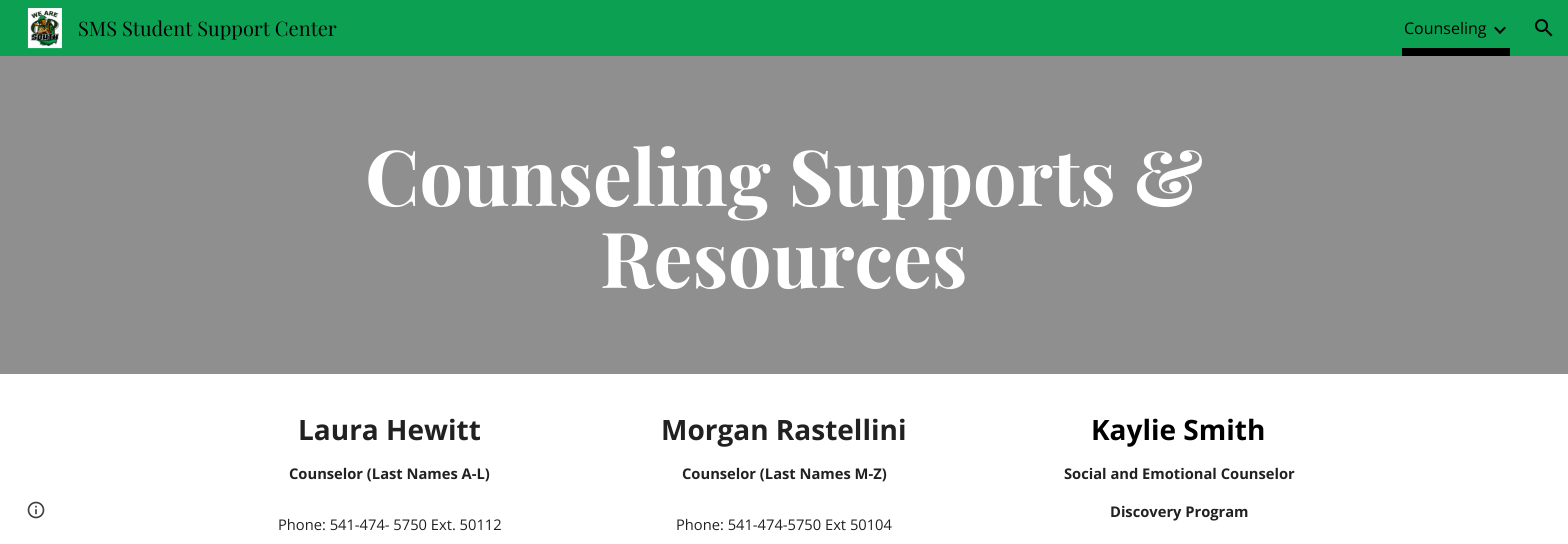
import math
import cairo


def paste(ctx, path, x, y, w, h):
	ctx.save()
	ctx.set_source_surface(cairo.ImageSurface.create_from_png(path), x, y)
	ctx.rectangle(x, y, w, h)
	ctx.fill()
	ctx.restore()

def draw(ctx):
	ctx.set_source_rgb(1, 1, 1)
	ctx.paint()
	ctx.set_source_rgb(0.047, 0.627, 0.322)
	ctx.rectangle(0, 0, 1568, 56)
	ctx.fill()
	paste(ctx, 'media/1.png', 27, 8, 35, 41)
	ctx.select_font_face('Playfair Display')
	ctx.set_font_size(20)
	ctx.set_source_rgb(0, 0, 0)
	ctx.move_to(78, 36)
	ctx.show_text('SMS Student Support Center')
	ctx.rectangle(1402, 48, 108, 8)
	ctx.fill()
	ctx.select_font_face('Open Sans')
	ctx.set_font_size(16)
	ctx.move_to(1404, 34)
	ctx.show_text('Counseling')
	paste(ctx, 'media/2.png', 1494, 26, 12, 8)
	paste(ctx, 'media/3.png', 1535, 19, 18, 18)
	paste(ctx, 'media/4.png', 27, 501, 18, 18)
	ctx.set_source_rgb(0.561, 0.561, 0.561)
	ctx.rectangle(0, 56, 1568, 318)
	ctx.fill()
	ctx.select_font_face('Playfair Display', cairo.FONT_SLANT_NORMAL, cairo.FONT_WEIGHT_BOLD)
	ctx.set_font_size(77.25)
	ctx.set_source_rgb(1, 1, 1)
	ctx.move_to(365, 206)
	ctx.show_text('Counseling Supports &')
	ctx.move_to(600, 288)
	ctx.show_text('Resources')
	ctx.select_font_face('Open Sans', cairo.FONT_SLANT_NORMAL, cairo.FONT_WEIGHT_BOLD)
	ctx.set_font_size(28)
	ctx.set_source_rgb(0.129, 0.129, 0.129)
	ctx.move_to(298, 440)
	ctx.show_text('Laura Hewitt')
	ctx.set_font_size(14.7)
	ctx.move_to(289, 479)
	ctx.show_text('Counselor (Last Names A-L)')
	ctx.select_font_face('Open Sans')
	ctx.move_to(278, 530)
	ctx.show_text('Phone: 541-474- 5750 Ext. 50112')
	ctx.select_font_face('Open Sans', cairo.FONT_SLANT_NORMAL, cairo.FONT_WEIGHT_BOLD)
	ctx.set_font_size(28)
	ctx.move_to(661, 440)
	ctx.show_text('Morgan Rastellini')
	ctx.set_font_size(14.7)
	ctx.move_to(682, 479)
	ctx.show_text('Counselor (Last Names M-Z)')
	ctx.select_font_face('Open Sans')
	ctx.move_to(676, 530)
	ctx.show_text('Phone: 541-474-5750 Ext 50104')
	ctx.select_font_face('Open Sans', cairo.FONT_SLANT_NORMAL, cairo.FONT_WEIGHT_BOLD)
	ctx.set_font_size(28)
	ctx.set_source_rgb(0, 0, 0)
	ctx.move_to(1091, 440)
	ctx.show_text('Kaylie Smith')
	ctx.set_font_size(14.7)
	ctx.set_source_rgb(0.129, 0.129, 0.129)
	ctx.move_to(1064, 479)
	ctx.show_text('Social and Emotional Counselor')
	ctx.move_to(1110, 517)
	ctx.show_text('Discovery Program')


surface = cairo.ImageSurface(cairo.FORMAT_RGB24, 1568, 544)
ctx = cairo.Context(surface)
options = cairo.FontOptions()
options.set_hint_metrics(cairo.HINT_METRICS_OFF)
options.set_hint_style(cairo.HINT_STYLE_NONE)
ctx.set_font_options(options)
ctx.set_miter_limit(4)
draw(ctx)
surface.write_to_png('image.png')
